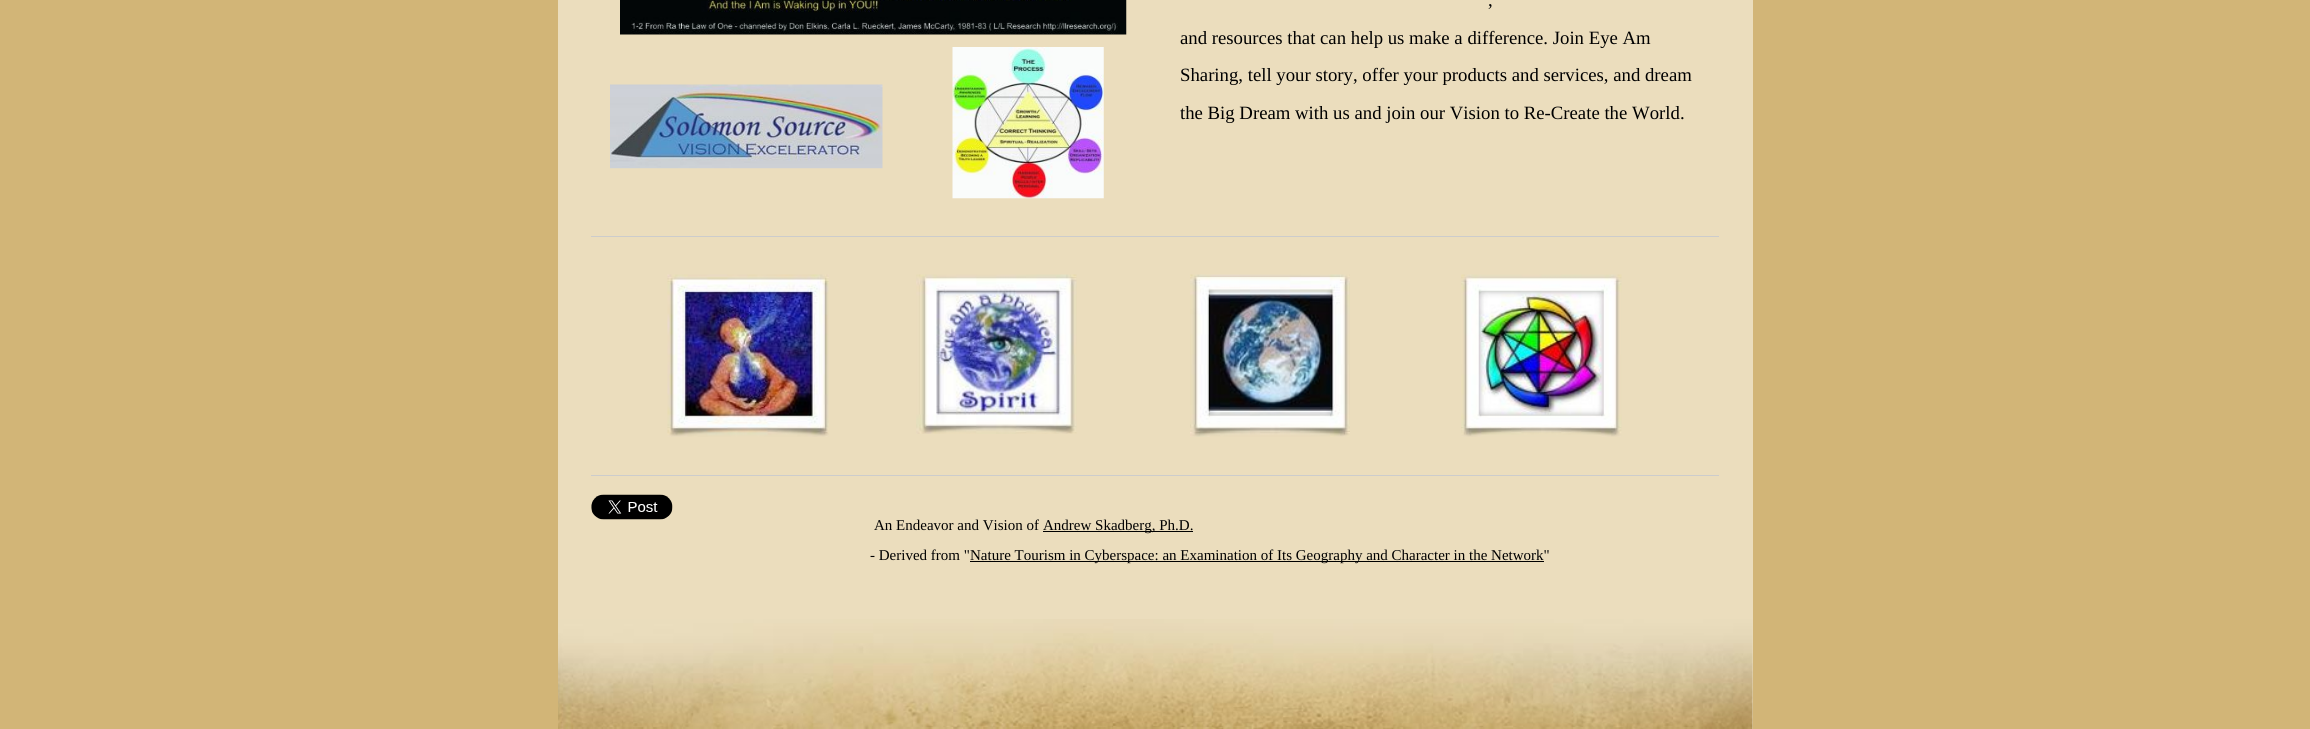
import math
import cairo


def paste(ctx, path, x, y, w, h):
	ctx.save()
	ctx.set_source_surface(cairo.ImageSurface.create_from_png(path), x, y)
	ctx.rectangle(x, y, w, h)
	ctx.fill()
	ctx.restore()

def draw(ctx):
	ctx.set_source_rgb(0.824, 0.71, 0.467)
	ctx.paint()
	ctx.set_source_rgb(0.918, 0.867, 0.741)
	ctx.rectangle(558, 0, 1195, 729)
	ctx.fill()
	paste(ctx, 'media/1.png', 620, 0, 507, 35)
	paste(ctx, 'media/2.png', 610, 84, 273, 85)
	paste(ctx, 'media/3.png', 952, 47, 152, 152)
	ctx.select_font_face('Liberation Serif')
	ctx.set_font_size(18.75)
	ctx.set_source_rgb(0, 0, 0)
	for x, y, s in [
		(1488, 6, ','),
		(1180, 44, 'and resources that can help us make a difference. Join Eye Am'),
		(1180, 81, 'Sharing, tell your story, offer your products and services, and dream'),
		(1180, 119, 'the Big Dream with us and join our Vision to Re-Create the World.'),
	]:
		ctx.move_to(x, y)
		ctx.show_text(s)
	ctx.set_source_rgb(0.8, 0.8, 0.8)
	ctx.rectangle(591, 236, 1128, 1)
	ctx.fill()
	paste(ctx, 'media/4.png', 667, 274, 162, 163)
	paste(ctx, 'media/5.png', 916, 274, 161, 160)
	paste(ctx, 'media/6.png', 1190, 274, 160, 163)
	paste(ctx, 'media/7.png', 1461, 274, 161, 163)
	ctx.rectangle(591, 475, 1128, 1)
	ctx.fill()
	paste(ctx, 'media/8.png', 591, 494, 82, 26)
	ctx.set_font_size(15)
	ctx.set_source_rgb(0, 0, 0)
	ctx.move_to(874, 530)
	ctx.show_text('An Endeavor and Vision of')
	ctx.rectangle(1043, 531, 150, 1)
	ctx.fill()
	ctx.move_to(1043, 530)
	ctx.show_text('Andrew Skadberg, Ph.D.')
	ctx.move_to(870, 560)
	ctx.show_text('- Derived from "')
	ctx.rectangle(970, 561, 574, 1)
	ctx.fill()
	ctx.move_to(970, 560)
	ctx.show_text('Nature Tourism in Cyberspace: an Examination of Its Geography and Character in the Network"')
	paste(ctx, 'media/9.png', 558, 619, 1195, 110)


surface = cairo.ImageSurface(cairo.FORMAT_RGB24, 2310, 729)
ctx = cairo.Context(surface)
options = cairo.FontOptions()
options.set_hint_metrics(cairo.HINT_METRICS_OFF)
options.set_hint_style(cairo.HINT_STYLE_NONE)
ctx.set_font_options(options)
ctx.set_miter_limit(4)
draw(ctx)
surface.write_to_png('image.png')
